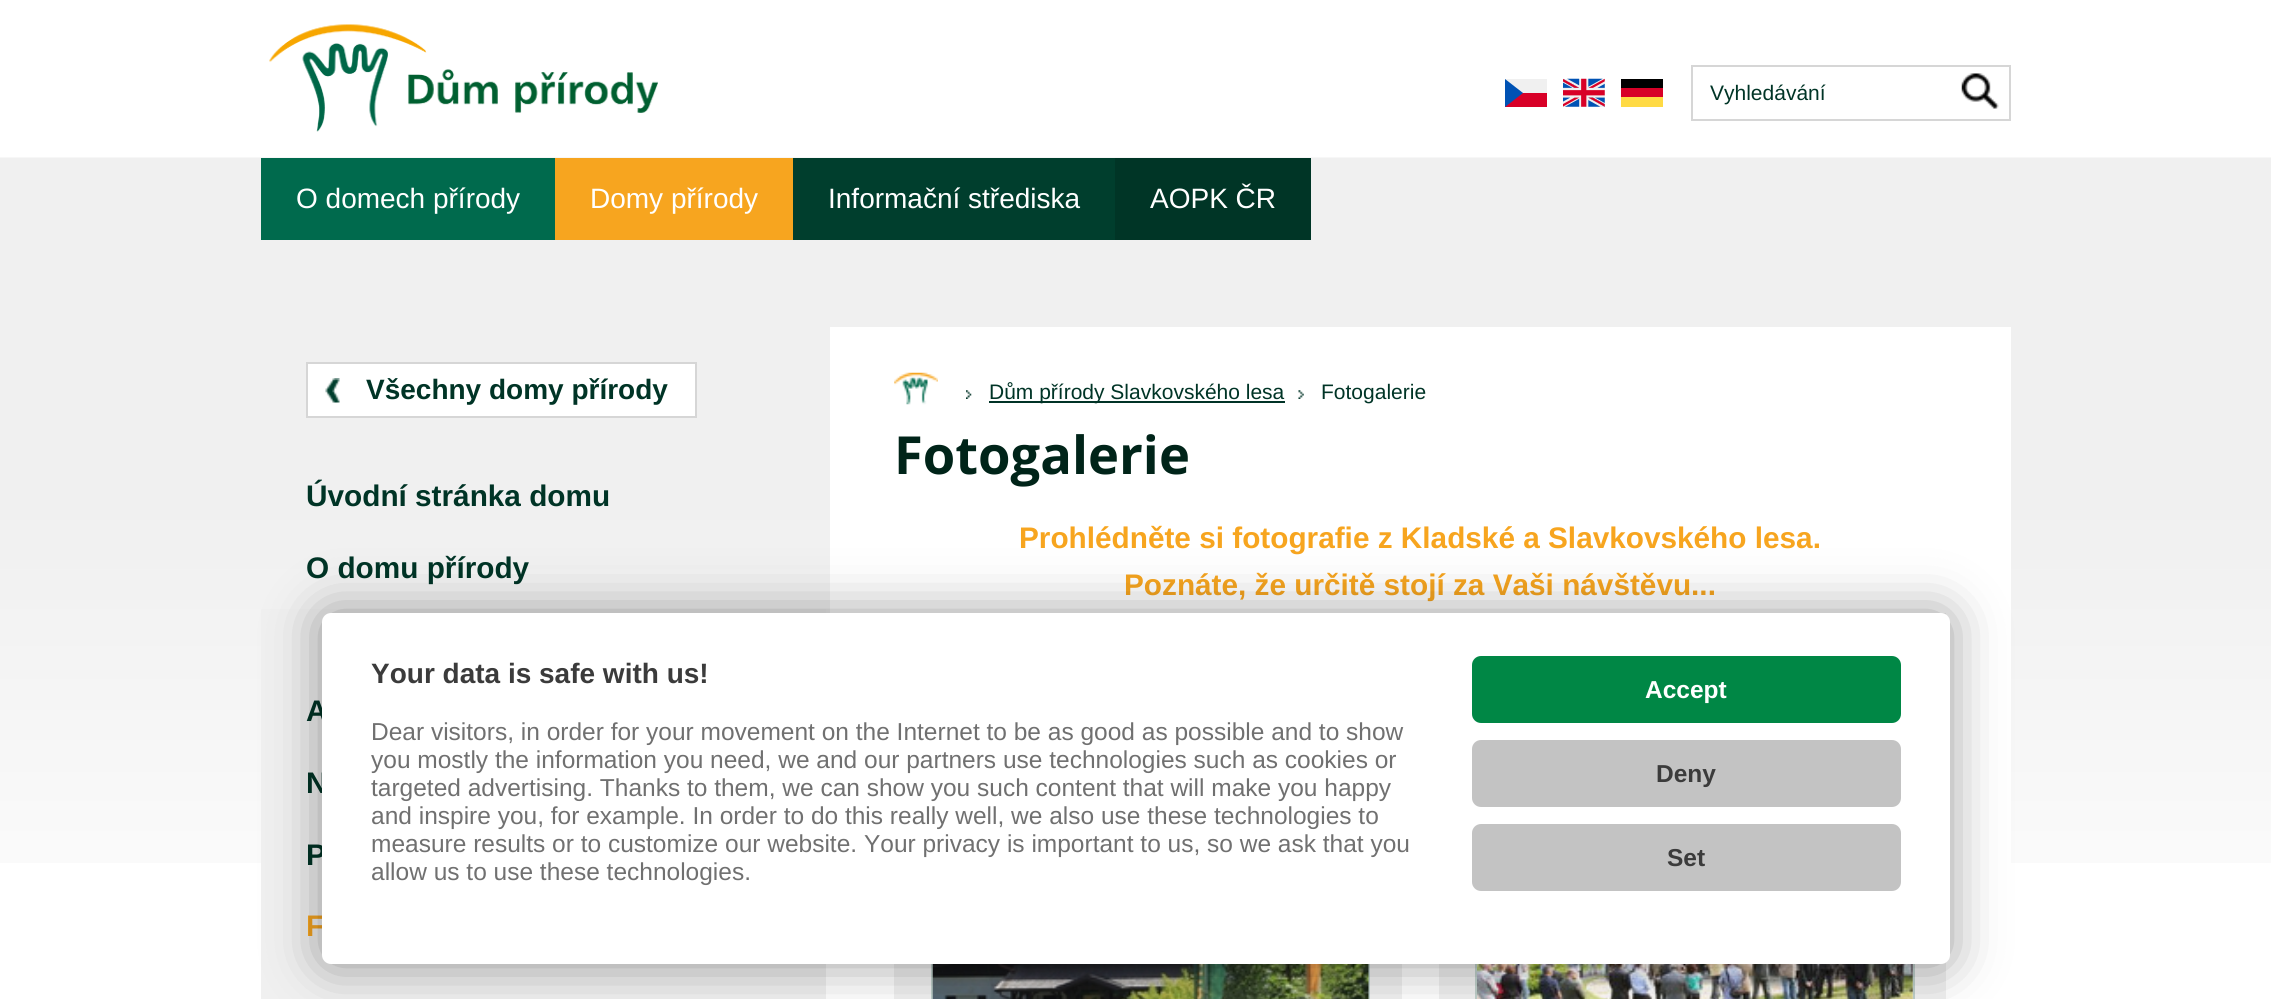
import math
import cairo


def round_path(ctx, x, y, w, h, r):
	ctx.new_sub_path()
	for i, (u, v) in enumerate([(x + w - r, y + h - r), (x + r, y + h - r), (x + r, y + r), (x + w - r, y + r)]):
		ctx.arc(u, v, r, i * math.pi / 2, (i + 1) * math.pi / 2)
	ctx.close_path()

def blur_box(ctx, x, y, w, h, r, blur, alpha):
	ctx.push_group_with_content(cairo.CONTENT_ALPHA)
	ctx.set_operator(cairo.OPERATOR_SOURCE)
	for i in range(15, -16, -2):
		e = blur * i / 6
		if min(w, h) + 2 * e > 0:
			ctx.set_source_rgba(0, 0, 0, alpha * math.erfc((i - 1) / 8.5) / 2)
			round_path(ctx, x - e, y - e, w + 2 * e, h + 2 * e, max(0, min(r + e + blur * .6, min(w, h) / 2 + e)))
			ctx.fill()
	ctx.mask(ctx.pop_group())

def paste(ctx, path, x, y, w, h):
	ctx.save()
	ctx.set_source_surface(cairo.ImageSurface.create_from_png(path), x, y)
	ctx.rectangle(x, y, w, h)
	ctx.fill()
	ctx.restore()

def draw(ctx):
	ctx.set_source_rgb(1, 1, 1)
	ctx.paint()
	paste(ctx, 'media/1.png', 0, 157, 2271, 706)
	paste(ctx, 'media/2.png', 269, 24, 389, 108)
	ctx.set_source_rgb(0, 0.322, 0.706)
	ctx.rectangle(1505, 79, 18, 28)
	ctx.fill()
	ctx.set_source_rgb(0.847, 0, 0.153)
	ctx.new_path()
	ctx.move_to(1547, 93)
	ctx.line_to(1547, 107)
	ctx.line_to(1505, 107)
	ctx.line_to(1523, 93)
	ctx.close_path()
	ctx.fill()
	ctx.set_source_rgb(0.941, 0.941, 0.941)
	ctx.new_path()
	ctx.move_to(1547, 79)
	ctx.line_to(1547, 93)
	ctx.line_to(1523, 93)
	ctx.line_to(1505, 79)
	ctx.close_path()
	ctx.fill()
	paste(ctx, 'media/3.png', 1563, 78, 42, 29)
	ctx.set_source_rgb(0.847, 0, 0.153)
	ctx.rectangle(1621, 88, 42, 9)
	ctx.fill()
	ctx.set_source_rgb(0, 0, 0)
	ctx.rectangle(1621, 79, 42, 9)
	ctx.fill()
	ctx.set_source_rgb(1, 0.855, 0.267)
	ctx.rectangle(1621, 97, 42, 10)
	ctx.fill()
	ctx.rectangle(1692, 66, 318, 54)
	ctx.set_source_rgb(0.839, 0.839, 0.839)
	ctx.stroke()
	ctx.select_font_face('Liberation Sans')
	ctx.set_font_size(21)
	ctx.set_source_rgb(0, 0.204, 0.149)
	ctx.move_to(1710, 100)
	ctx.show_text('Vyhledávání')
	paste(ctx, 'media/4.png', 1961, 73, 38, 36)
	ctx.set_source_rgb(0, 0.416, 0.302)
	ctx.rectangle(261, 158, 294, 82)
	ctx.fill()
	ctx.set_font_size(28)
	ctx.set_source_rgb(1, 1, 1)
	ctx.move_to(296, 208)
	ctx.show_text('O domech přírody')
	ctx.set_source_rgb(0.965, 0.647, 0.122)
	ctx.rectangle(555, 158, 238, 82)
	ctx.fill()
	ctx.set_source_rgb(1, 1, 1)
	ctx.move_to(590, 208)
	ctx.show_text('Domy přírody')
	ctx.set_source_rgb(0, 0.243, 0.176)
	ctx.rectangle(793, 158, 322, 82)
	ctx.fill()
	ctx.set_source_rgb(1, 1, 1)
	ctx.move_to(828, 208)
	ctx.show_text('Informační střediska')
	ctx.set_source_rgb(0, 0.208, 0.149)
	ctx.rectangle(1115, 158, 196, 82)
	ctx.fill()
	ctx.set_source_rgb(1, 1, 1)
	ctx.move_to(1150, 208)
	ctx.show_text('AOPK ČR')
	ctx.set_source_rgb(0.941, 0.941, 0.941)
	ctx.rectangle(261, 609, 565, 390)
	ctx.fill()
	ctx.set_source_rgb(1, 1, 1)
	ctx.rectangle(307, 363, 389, 54)
	ctx.fill_preserve()
	ctx.set_source_rgb(0.839, 0.839, 0.839)
	ctx.stroke()
	paste(ctx, 'media/5.png', 325, 378, 15, 25)
	ctx.select_font_face('Liberation Sans', cairo.FONT_SLANT_NORMAL, cairo.FONT_WEIGHT_BOLD)
	ctx.set_source_rgb(0, 0.204, 0.149)
	ctx.move_to(366, 399)
	ctx.show_text('Všechny domy přírody')
	ctx.set_font_size(29.75)
	for x, y, s in [
		(306, 506, 'Úvodní stránka domu'),
		(306, 578, 'O domu přírody'),
		(306, 721, 'A'),
		(306, 793, 'N'),
		(306, 865, 'P'),
	]:
		ctx.move_to(x, y)
		ctx.show_text(s)
	ctx.set_source_rgb(0.965, 0.647, 0.122)
	ctx.move_to(306, 936)
	ctx.show_text('F')
	ctx.set_source_rgb(1, 1, 1)
	ctx.rectangle(830, 327, 1181, 536)
	ctx.fill()
	paste(ctx, 'media/6.png', 894, 372, 44, 33)
	paste(ctx, 'media/7.png', 966, 390, 6, 9)
	ctx.set_source_rgb(0, 0.2, 0.149)
	ctx.rectangle(989, 401, 296, 2)
	ctx.fill()
	ctx.select_font_face('Liberation Sans')
	ctx.set_font_size(21)
	ctx.set_source_rgb(0, 0.204, 0.149)
	ctx.move_to(989, 399)
	ctx.show_text('Dům přírody Slavkovského lesa')
	paste(ctx, 'media/8.png', 1298, 390, 6, 9)
	ctx.move_to(1321, 399)
	ctx.show_text('Fotogalerie')
	ctx.select_font_face('Open Sans', cairo.FONT_SLANT_NORMAL, cairo.FONT_WEIGHT_BOLD)
	ctx.set_font_size(52.5)
	ctx.set_source_rgb(0, 0.141, 0.098)
	ctx.move_to(894, 474)
	ctx.show_text('Fotogalerie')
	ctx.select_font_face('Liberation Sans', cairo.FONT_SLANT_NORMAL, cairo.FONT_WEIGHT_BOLD)
	ctx.set_font_size(29.75)
	ctx.set_source_rgb(0.965, 0.647, 0.122)
	ctx.move_to(1019, 548)
	ctx.show_text('Prohlédněte si fotografie z Kladské a Slavkovského lesa.')
	ctx.move_to(1124, 595)
	ctx.show_text('Poznáte, že určitě stojí za Vaši návštěvu...')
	ctx.set_source_rgb(0.941, 0.941, 0.941)
	ctx.rectangle(894, 964, 508, 35)
	ctx.fill()
	ctx.rectangle(932, 750, 437, 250)
	ctx.set_source_rgb(0.749, 0.812, 0.792)
	ctx.stroke()
	paste(ctx, 'media/9.png', 932, 964, 437, 35)
	ctx.set_source_rgb(0.941, 0.941, 0.941)
	ctx.rectangle(1439, 613, 507, 386)
	ctx.fill()
	ctx.rectangle(1476, 750, 438, 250)
	ctx.set_source_rgb(0.749, 0.812, 0.792)
	ctx.stroke()
	paste(ctx, 'media/10.png', 1477, 964, 436, 35)
	ctx.set_source_rgb(0, 0, 0)
	blur_box(ctx, 322, 613, 1628, 351, 9, 26, 0.4)
	ctx.set_source_rgb(1, 1, 1)
	round_path(ctx, 322, 613, 1628, 351, 9)
	ctx.fill()
	ctx.set_font_size(28)
	ctx.set_source_rgb(0.231, 0.231, 0.231)
	ctx.move_to(371, 683)
	ctx.show_text('Your data is safe with us!')
	ctx.select_font_face('Liberation Sans')
	ctx.set_font_size(24.5)
	ctx.set_source_rgb(0.439, 0.439, 0.439)
	for x, y, s in [
		(371, 740, 'Dear visitors, in order for your movement on the Internet to be as good as possible and to show'),
		(371, 768, 'you mostly the information you need, we and our partners use technologies such as cookies or'),
		(371, 796, 'targeted advertising. Thanks to them, we can show you such content that will make you happy'),
		(371, 824, 'and inspire you, for example. In order to do this really well, we also use these technologies to'),
		(371, 852, 'measure results or to customize our website. Your privacy is important to us, so we ask that you'),
		(371, 880, 'allow us to use these technologies.'),
	]:
		ctx.move_to(x, y)
		ctx.show_text(s)
	ctx.set_source_rgb(0, 0.529, 0.271)
	round_path(ctx, 1472, 656, 429, 67, 9)
	ctx.fill()
	ctx.select_font_face('Liberation Sans', cairo.FONT_SLANT_NORMAL, cairo.FONT_WEIGHT_BOLD)
	ctx.set_source_rgb(1, 1, 1)
	ctx.move_to(1645, 698)
	ctx.show_text('Accept')
	ctx.set_source_rgb(0.765, 0.765, 0.765)
	round_path(ctx, 1472, 740, 429, 67, 9)
	ctx.fill()
	ctx.set_source_rgb(0.231, 0.231, 0.231)
	ctx.move_to(1656, 782)
	ctx.show_text('Deny')
	ctx.set_source_rgb(0.765, 0.765, 0.765)
	round_path(ctx, 1472, 824, 429, 67, 9)
	ctx.fill()
	ctx.set_source_rgb(0.231, 0.231, 0.231)
	ctx.move_to(1667, 866)
	ctx.show_text('Set')


surface = cairo.ImageSurface(cairo.FORMAT_RGB24, 2271, 999)
ctx = cairo.Context(surface)
options = cairo.FontOptions()
options.set_hint_metrics(cairo.HINT_METRICS_OFF)
options.set_hint_style(cairo.HINT_STYLE_NONE)
ctx.set_font_options(options)
ctx.set_miter_limit(4)
draw(ctx)
surface.write_to_png('image.png')
